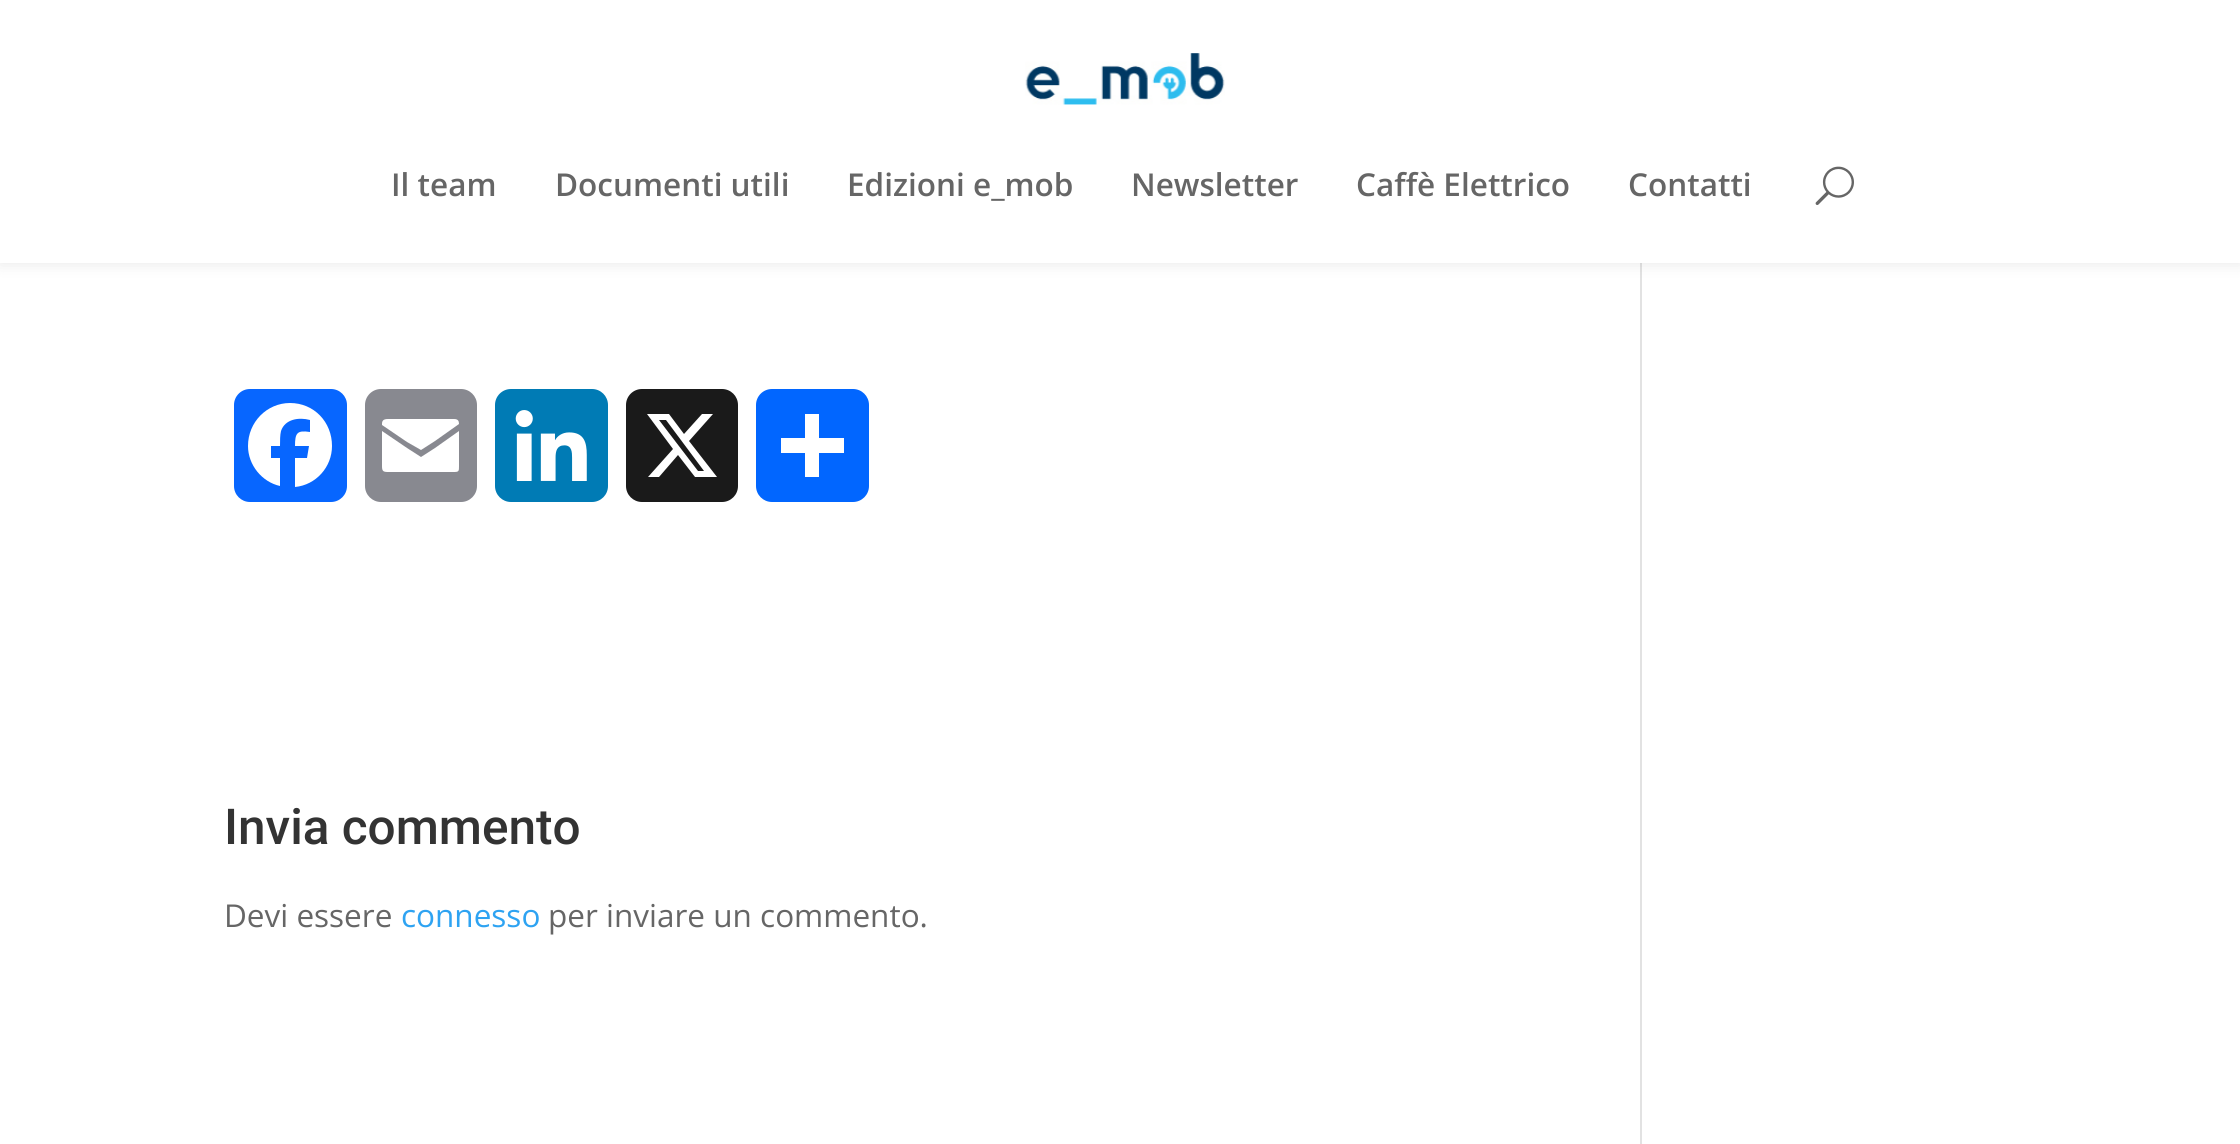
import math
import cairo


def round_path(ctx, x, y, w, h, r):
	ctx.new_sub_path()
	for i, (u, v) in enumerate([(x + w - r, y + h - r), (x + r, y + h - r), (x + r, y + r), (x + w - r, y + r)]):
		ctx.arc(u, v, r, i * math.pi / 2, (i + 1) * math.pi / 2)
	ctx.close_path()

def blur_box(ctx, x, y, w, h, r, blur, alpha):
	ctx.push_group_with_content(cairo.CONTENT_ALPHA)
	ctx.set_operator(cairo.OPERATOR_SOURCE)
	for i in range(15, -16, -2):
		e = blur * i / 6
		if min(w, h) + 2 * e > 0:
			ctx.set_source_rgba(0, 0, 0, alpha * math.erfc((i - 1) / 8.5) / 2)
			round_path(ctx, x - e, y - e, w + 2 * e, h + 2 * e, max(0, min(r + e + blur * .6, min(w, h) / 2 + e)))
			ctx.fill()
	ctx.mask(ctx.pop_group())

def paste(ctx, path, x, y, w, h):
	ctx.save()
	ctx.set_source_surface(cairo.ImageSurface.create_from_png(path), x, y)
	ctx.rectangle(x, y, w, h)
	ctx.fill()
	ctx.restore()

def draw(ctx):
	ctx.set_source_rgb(1, 1, 1)
	ctx.paint()
	ctx.set_source_rgb(0.886, 0.886, 0.886)
	ctx.rectangle(1640, 263, 2, 881)
	ctx.fill()
	ctx.set_source_rgb(0, 0, 0)
	blur_box(ctx, 0, 0, 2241, 263, 0, 8, 0.1)
	ctx.set_source_rgb(1, 1, 1)
	ctx.rectangle(0, 0, 2240, 263)
	ctx.fill()
	paste(ctx, 'media/1.png', 1025, 53, 200, 52)
	ctx.select_font_face('Open Sans SemiBold')
	ctx.set_font_size(31.5)
	ctx.set_source_rgb(0.4, 0.4, 0.4)
	for x, y, s in [
		(391, 196, 'Il team'),
		(555, 196, 'Documenti utili'),
		(847, 196, 'Edizioni e_mob'),
		(1131, 196, 'Newsletter'),
		(1356, 196, 'Caffè Elettrico'),
		(1628, 196, 'Contatti'),
	]:
		ctx.move_to(x, y)
		ctx.show_text(s)
	paste(ctx, 'media/2.png', 1815, 166, 39, 39)
	ctx.set_source_rgb(0.031, 0.4, 1)
	round_path(ctx, 234, 389, 113, 113, 16)
	ctx.fill()
	ctx.set_source_rgb(1, 1, 1)
	ctx.new_path()
	ctx.move_to(332, 446)
	ctx.curve_to(332, 422, 314, 403, 290, 403)
	ctx.curve_to(267, 403, 248, 422, 248, 446)
	ctx.curve_to(248, 465, 262, 482, 280, 486)
	ctx.line_to(280, 458)
	ctx.line_to(271, 458)
	ctx.line_to(271, 446)
	ctx.line_to(280, 446)
	ctx.curve_to(280, 441, 280, 435, 281, 431)
	ctx.curve_to(285, 419, 299, 417, 310, 420)
	ctx.line_to(310, 432)
	ctx.curve_to(297, 430, 295, 433, 295, 446)
	ctx.line_to(309, 446)
	ctx.line_to(307, 458)
	ctx.line_to(295, 458)
	ctx.line_to(295, 487)
	ctx.curve_to(316, 485, 332, 467, 332, 446)
	ctx.fill()
	ctx.set_source_rgb(0.533, 0.537, 0.565)
	round_path(ctx, 365, 389, 112, 113, 16)
	ctx.fill()
	ctx.set_source_rgb(1, 1, 1)
	ctx.new_path()
	ctx.move_to(459, 466)
	ctx.line_to(459, 431)
	ctx.line_to(435, 448)
	ctx.line_to(421, 457)
	ctx.line_to(407, 448)
	ctx.line_to(382, 431)
	ctx.line_to(382, 466)
	ctx.curve_to(382, 471, 383, 472, 388, 472)
	ctx.line_to(454, 472)
	ctx.curve_to(459, 472, 459, 471, 459, 466)
	ctx.move_to(459, 424)
	ctx.curve_to(459, 421, 458, 419, 454, 419)
	ctx.line_to(388, 419)
	ctx.curve_to(383, 419, 382, 421, 382, 424)
	ctx.line_to(382, 425)
	ctx.line_to(407, 442)
	ctx.line_to(421, 450)
	ctx.line_to(435, 441)
	ctx.close_path()
	ctx.fill()
	ctx.set_source_rgb(0, 0.482, 0.71)
	round_path(ctx, 495, 389, 113, 113, 16)
	ctx.fill()
	paste(ctx, 'media/3.png', 515, 410, 72, 71)
	ctx.set_source_rgb(0.102, 0.102, 0.102)
	round_path(ctx, 626, 389, 112, 113, 16)
	ctx.fill()
	ctx.set_source_rgb(1, 1, 1)
	ctx.new_path()
	ctx.move_to(702, 414)
	ctx.line_to(713, 414)
	ctx.line_to(689, 441)
	ctx.line_to(717, 477)
	ctx.line_to(695, 477)
	ctx.line_to(678, 455)
	ctx.line_to(659, 477)
	ctx.line_to(648, 477)
	ctx.line_to(673, 449)
	ctx.line_to(647, 414)
	ctx.line_to(669, 414)
	ctx.line_to(684, 434)
	ctx.close_path()
	ctx.move_to(698, 471)
	ctx.line_to(704, 471)
	ctx.line_to(666, 420)
	ctx.line_to(659, 420)
	ctx.close_path()
	ctx.fill()
	ctx.set_source_rgb(0.004, 0.4, 1)
	round_path(ctx, 756, 389, 113, 113, 16)
	ctx.fill()
	ctx.set_source_rgb(1, 1, 1)
	ctx.rectangle(805, 414, 14, 63)
	ctx.fill()
	ctx.rectangle(781, 438, 63, 15)
	ctx.fill()
	ctx.select_font_face('Roboto Medium')
	ctx.set_font_size(49.5)
	ctx.set_source_rgb(0.2, 0.2, 0.2)
	ctx.move_to(224, 844)
	ctx.show_text('Invia commento')
	ctx.select_font_face('Open Sans')
	ctx.set_font_size(31.5)
	ctx.set_source_rgb(0.4, 0.4, 0.4)
	ctx.move_to(224, 927)
	ctx.show_text('Devi essere')
	ctx.set_source_rgb(0.18, 0.639, 0.949)
	ctx.move_to(401, 927)
	ctx.show_text('connesso')
	ctx.set_source_rgb(0.4, 0.4, 0.4)
	ctx.move_to(548, 927)
	ctx.show_text('per inviare un commento.')


surface = cairo.ImageSurface(cairo.FORMAT_RGB24, 2240, 1144)
ctx = cairo.Context(surface)
options = cairo.FontOptions()
options.set_hint_metrics(cairo.HINT_METRICS_OFF)
options.set_hint_style(cairo.HINT_STYLE_NONE)
ctx.set_font_options(options)
ctx.set_miter_limit(4)
draw(ctx)
surface.write_to_png('image.png')
